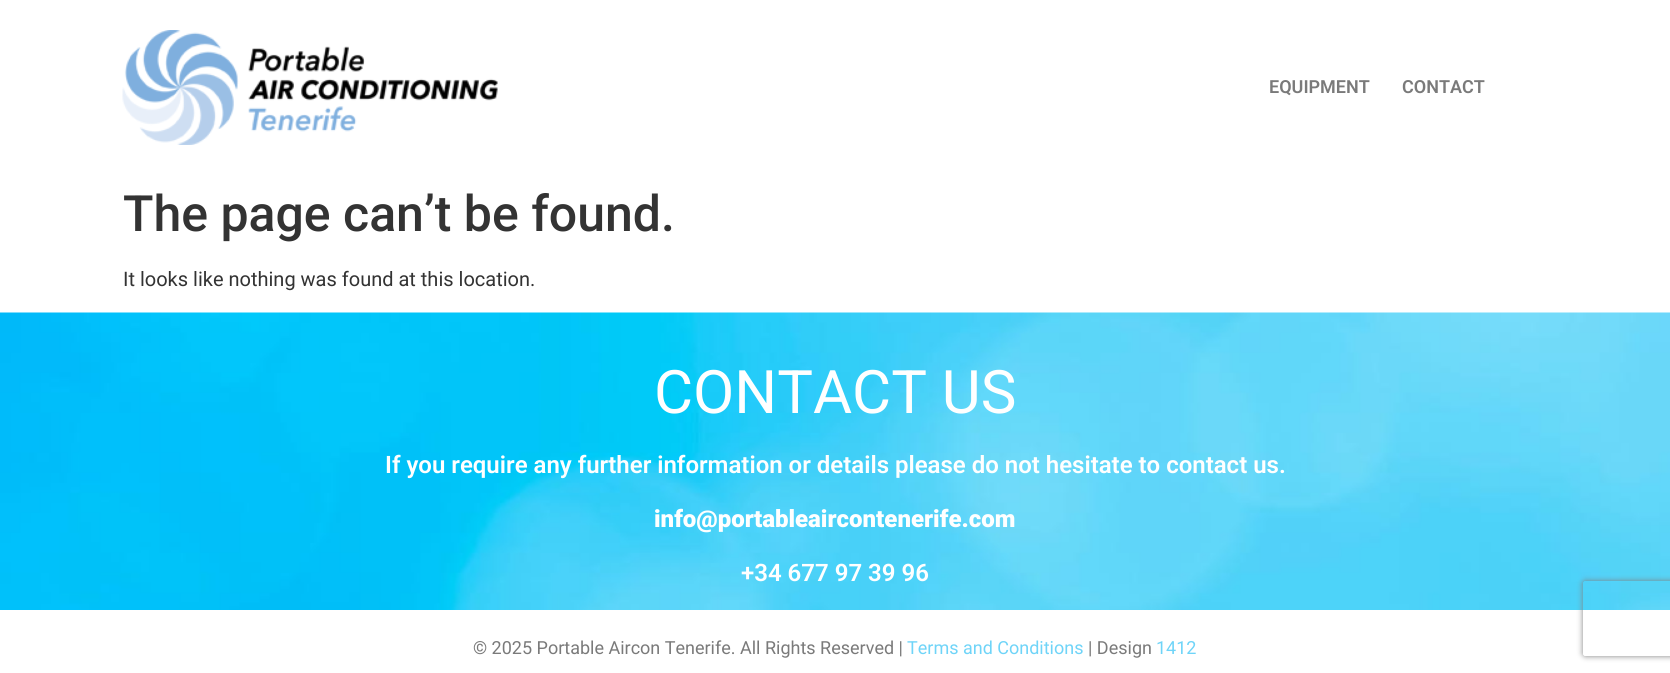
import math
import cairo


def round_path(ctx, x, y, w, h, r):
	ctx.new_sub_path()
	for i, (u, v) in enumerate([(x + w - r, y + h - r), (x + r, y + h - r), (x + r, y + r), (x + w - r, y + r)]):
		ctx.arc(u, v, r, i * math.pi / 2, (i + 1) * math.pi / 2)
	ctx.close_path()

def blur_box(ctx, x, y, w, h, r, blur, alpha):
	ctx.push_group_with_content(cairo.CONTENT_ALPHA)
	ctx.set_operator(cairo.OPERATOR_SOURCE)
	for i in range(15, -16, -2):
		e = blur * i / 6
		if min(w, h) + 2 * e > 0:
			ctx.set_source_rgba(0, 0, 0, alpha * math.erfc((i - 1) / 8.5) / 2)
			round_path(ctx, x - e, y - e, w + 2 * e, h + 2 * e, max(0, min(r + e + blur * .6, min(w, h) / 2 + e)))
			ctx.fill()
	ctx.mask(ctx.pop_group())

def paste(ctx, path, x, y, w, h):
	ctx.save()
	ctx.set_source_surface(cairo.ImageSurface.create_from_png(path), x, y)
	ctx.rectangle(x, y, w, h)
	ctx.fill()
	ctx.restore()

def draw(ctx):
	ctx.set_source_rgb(1, 1, 1)
	ctx.paint()
	paste(ctx, 'media/1.png', 122, 30, 376, 115)
	ctx.select_font_face('Roboto SemiBold')
	ctx.set_font_size(18)
	ctx.set_source_rgb(0.478, 0.478, 0.478)
	ctx.move_to(1269, 93)
	ctx.show_text('EQUIPMENT')
	ctx.move_to(1402, 93)
	ctx.show_text('CONTACT')
	ctx.select_font_face('Roboto Medium')
	ctx.set_font_size(50)
	ctx.set_source_rgb(0.2, 0.2, 0.2)
	ctx.move_to(123, 231)
	ctx.show_text('The page can’t be found.')
	ctx.select_font_face('Roboto')
	ctx.set_font_size(20)
	ctx.move_to(123, 286)
	ctx.show_text('It looks like nothing was found at this location.')
	paste(ctx, 'media/2.png', 0, 312, 1670, 298)
	ctx.set_font_size(60)
	ctx.set_source_rgb(1, 1, 1)
	ctx.move_to(654, 413)
	ctx.show_text('CONTACT US')
	ctx.select_font_face('Roboto SemiBold')
	ctx.set_font_size(24)
	ctx.move_to(385, 473)
	ctx.show_text('If you require any further information or details please do not hesitate to contact us.')
	ctx.select_font_face('Roboto Black')
	ctx.move_to(654, 527)
	ctx.show_text('info@portableaircontenerife.com')
	ctx.select_font_face('Roboto SemiBold')
	ctx.move_to(741, 581)
	ctx.show_text('+34 677 97 39 96')
	ctx.select_font_face('Roboto')
	ctx.set_font_size(18)
	ctx.set_source_rgb(0.478, 0.478, 0.478)
	ctx.move_to(473, 654)
	ctx.show_text('© 2025 Portable Aircon Tenerife. All Rights Reserved |')
	ctx.set_source_rgb(0.435, 0.831, 0.969)
	ctx.move_to(907, 654)
	ctx.show_text('Terms and Conditions')
	ctx.set_source_rgb(0.478, 0.478, 0.478)
	ctx.move_to(1088, 654)
	ctx.show_text('| Design')
	ctx.set_source_rgb(0.435, 0.831, 0.969)
	ctx.move_to(1156, 654)
	ctx.show_text('1412')
	ctx.save()
	ctx.set_fill_rule(cairo.FILL_RULE_EVEN_ODD)
	ctx.new_path()
	ctx.move_to(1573, 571)
	ctx.line_to(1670, 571)
	ctx.line_to(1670, 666)
	ctx.line_to(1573, 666)
	ctx.close_path()
	ctx.move_to(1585.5, 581)
	ctx.line_to(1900.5, 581)
	ctx.curve_to(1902, 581, 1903, 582, 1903, 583.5)
	ctx.line_to(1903, 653.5)
	ctx.curve_to(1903, 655, 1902, 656, 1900.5, 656)
	ctx.line_to(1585.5, 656)
	ctx.curve_to(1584, 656, 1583, 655, 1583, 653.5)
	ctx.line_to(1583, 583.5)
	ctx.curve_to(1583, 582, 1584, 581, 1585.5, 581)
	ctx.close_path()
	ctx.clip()
	ctx.set_source_rgb(0.502, 0.502, 0.502)
	blur_box(ctx, 1583, 581, 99, 75, 2.5, 3, 1)
	ctx.restore()


surface = cairo.ImageSurface(cairo.FORMAT_RGB24, 1670, 673)
ctx = cairo.Context(surface)
options = cairo.FontOptions()
options.set_hint_metrics(cairo.HINT_METRICS_OFF)
options.set_hint_style(cairo.HINT_STYLE_NONE)
ctx.set_font_options(options)
ctx.set_miter_limit(4)
draw(ctx)
surface.write_to_png('image.png')
